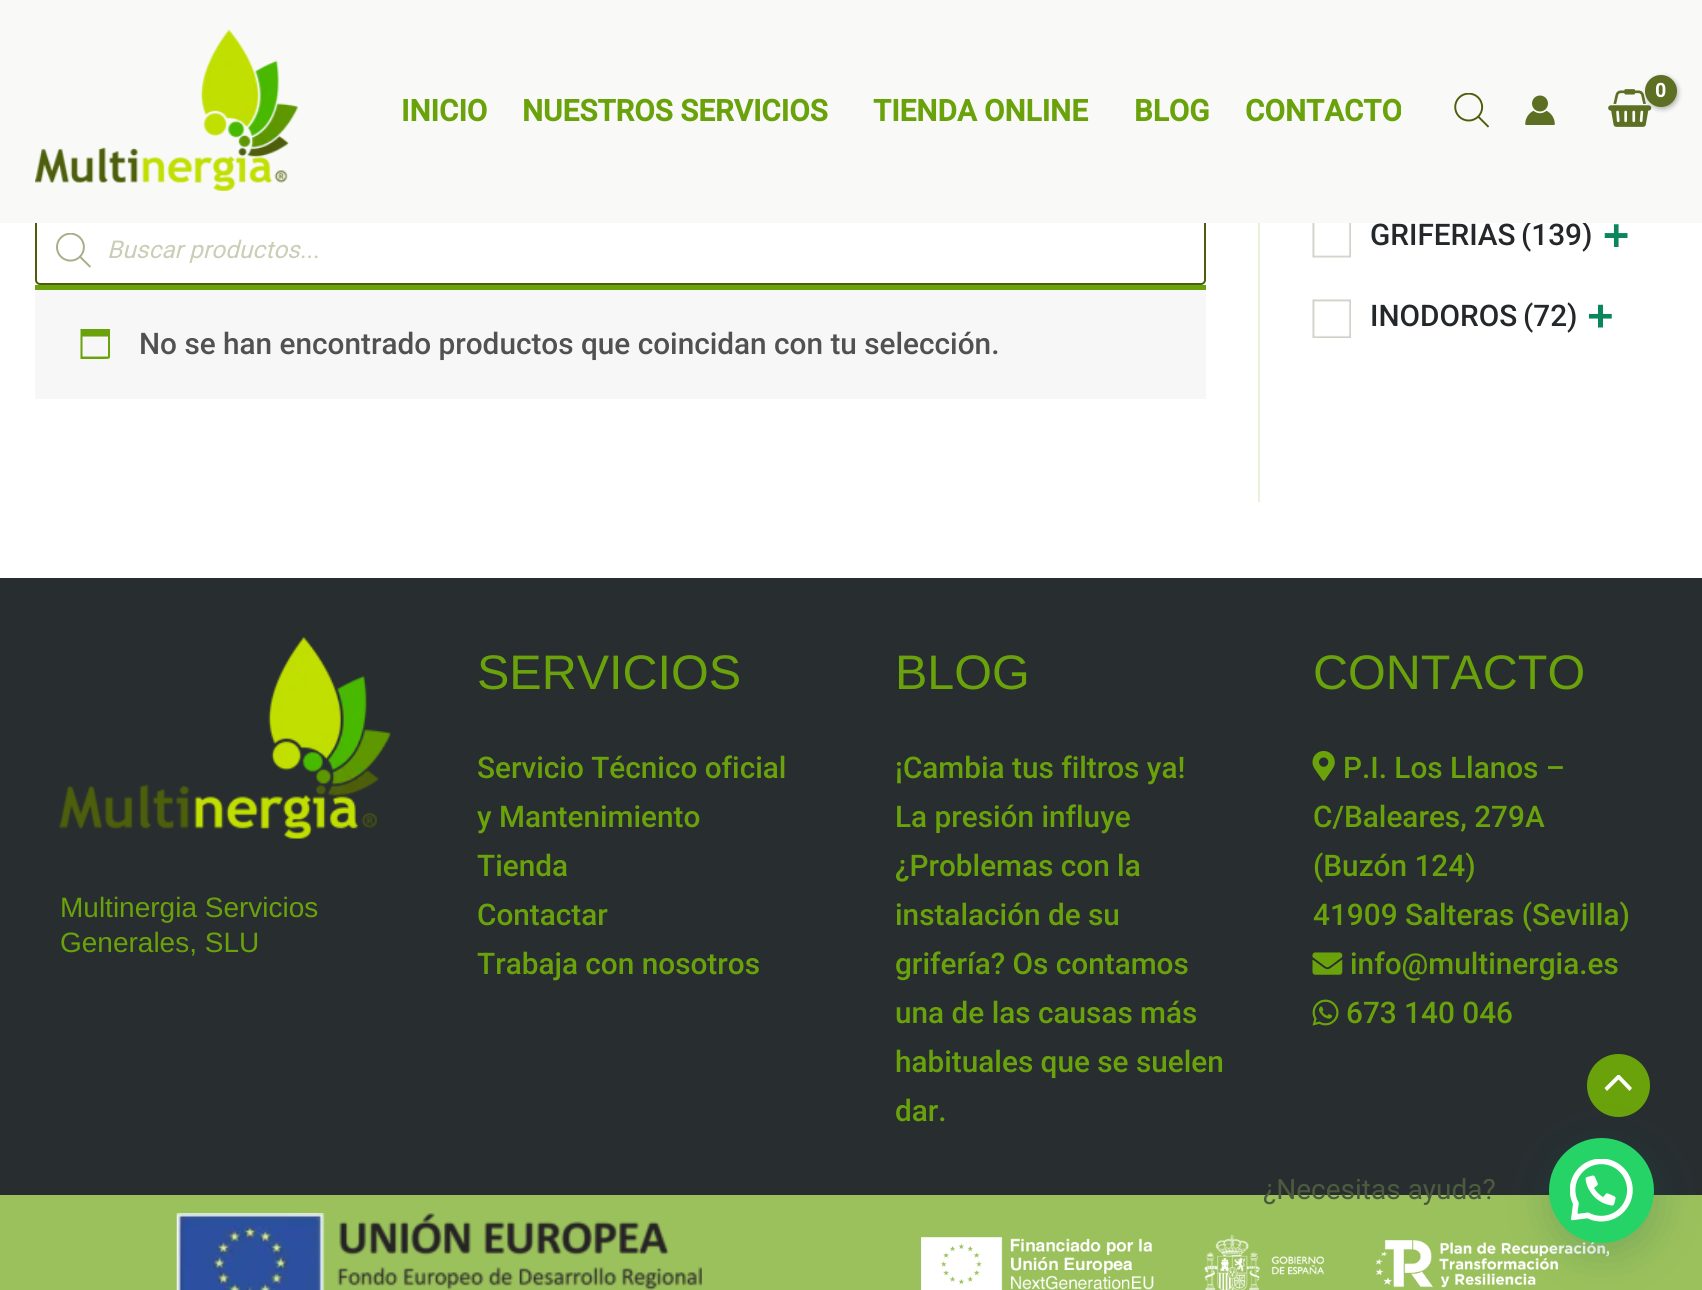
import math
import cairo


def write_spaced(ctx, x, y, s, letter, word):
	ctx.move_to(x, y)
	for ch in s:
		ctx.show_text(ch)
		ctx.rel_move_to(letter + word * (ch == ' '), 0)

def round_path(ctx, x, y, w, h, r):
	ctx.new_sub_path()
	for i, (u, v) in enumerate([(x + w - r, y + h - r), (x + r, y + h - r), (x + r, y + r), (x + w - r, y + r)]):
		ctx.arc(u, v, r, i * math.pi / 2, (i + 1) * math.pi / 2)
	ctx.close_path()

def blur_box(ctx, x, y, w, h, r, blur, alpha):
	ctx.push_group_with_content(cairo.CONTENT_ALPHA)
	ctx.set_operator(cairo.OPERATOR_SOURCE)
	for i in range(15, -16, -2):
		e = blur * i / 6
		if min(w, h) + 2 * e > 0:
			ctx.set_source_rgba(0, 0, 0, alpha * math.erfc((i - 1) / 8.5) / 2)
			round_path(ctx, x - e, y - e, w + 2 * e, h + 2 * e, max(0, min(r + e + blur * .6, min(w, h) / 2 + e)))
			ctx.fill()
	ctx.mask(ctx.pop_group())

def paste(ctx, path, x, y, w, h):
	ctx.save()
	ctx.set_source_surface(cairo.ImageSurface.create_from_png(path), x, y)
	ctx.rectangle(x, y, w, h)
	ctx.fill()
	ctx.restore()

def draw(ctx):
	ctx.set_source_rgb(1, 1, 1)
	ctx.paint()
	round_path(ctx, 36, 216, 1169, 68, 4)
	ctx.set_source_rgb(0.31, 0.361, 0.039)
	ctx.stroke()
	ctx.select_font_face('Roboto Medium')
	ctx.set_font_size(29.75)
	ctx.set_source_rgb(0.145, 0.157, 0.165)
	ctx.move_to(1521, 245)
	ctx.show_text('(139)')
	ctx.set_source_rgb(0.976, 0.98, 0.969)
	ctx.rectangle(0, 0, 1702, 223)
	ctx.fill()
	paste(ctx, 'media/1.png', 35, 29, 263, 162)
	paste(ctx, 'media/2.png', 1608, 89, 44, 38)
	ctx.set_source_rgb(0, 0, 0)
	blur_box(ctx, 1647, 77, 31, 32, 15.5, 2.5, 0.3)
	ctx.set_source_rgb(0.361, 0.435, 0.137)
	ctx.arc(1661, 91, 16, 0, 2 * math.pi)
	ctx.fill()
	ctx.select_font_face('Roboto', cairo.FONT_SLANT_NORMAL, cairo.FONT_WEIGHT_BOLD)
	ctx.set_font_size(19)
	ctx.set_source_rgb(1, 1, 1)
	write_spaced(ctx, 1655, 97, '0', -1, 0)
	ctx.set_font_size(29.75)
	ctx.set_source_rgb(0.416, 0.635, 0.043)
	for x, y, s in [
		(401, 121, 'INICIO'),
		(522, 121, 'NUESTROS SERVICIOS'),
		(873, 121, 'TIENDA ONLINE'),
		(1134, 121, 'BLOG'),
		(1245, 121, 'CONTACTO'),
	]:
		ctx.move_to(x, y)
		ctx.show_text(s)
	paste(ctx, 'media/3.png', 1454, 93, 35, 35)
	paste(ctx, 'media/4.png', 1525, 95, 30, 30)
	paste(ctx, 'media/5.png', 56, 233, 35, 35)
	ctx.select_font_face('Roboto', cairo.FONT_SLANT_ITALIC)
	ctx.set_font_size(24.5)
	ctx.set_source_rgb(0.792, 0.808, 0.714)
	ctx.move_to(107, 258)
	ctx.show_text('Buscar productos...')
	ctx.set_source_rgb(0.969, 0.965, 0.969)
	ctx.rectangle(35, 290, 1171, 109)
	ctx.fill()
	ctx.set_source_rgb(0.416, 0.635, 0.043)
	ctx.rectangle(35, 285, 1171, 5)
	ctx.fill()
	ctx.new_path()
	ctx.move_to(108, 336.5)
	ctx.line_to(82.5, 336.5)
	ctx.line_to(82.5, 356.5)
	ctx.line_to(108, 356.5)
	ctx.close_path()
	ctx.move_to(110, 329)
	ctx.line_to(110, 352)
	ctx.curve_to(110, 359, 111, 359, 103.5, 359)
	ctx.line_to(80.5, 359)
	ctx.line_to(80.5, 329)
	ctx.close_path()
	ctx.fill()
	ctx.select_font_face('Roboto Medium')
	ctx.set_font_size(29.75)
	ctx.set_source_rgb(0.318, 0.318, 0.318)
	ctx.move_to(139, 354)
	ctx.show_text('No se han encontrado productos que coincidan con tu selección.')
	ctx.set_source_rgb(0.91, 0.945, 0.855)
	ctx.rectangle(1258, 223, 2, 279)
	ctx.fill()
	paste(ctx, 'media/6.png', 1312, 223, 39, 35)
	ctx.set_source_rgb(0.145, 0.157, 0.165)
	ctx.move_to(1370, 245)
	ctx.show_text('GRIFERIAS')
	paste(ctx, 'media/7.png', 1604, 224, 24, 23)
	paste(ctx, 'media/8.png', 1312, 299, 39, 39)
	ctx.move_to(1370, 326)
	ctx.show_text('INODOROS')
	ctx.move_to(1523, 326)
	ctx.show_text('(72)')
	paste(ctx, 'media/9.png', 1589, 304, 23, 24)
	ctx.set_source_rgb(0.157, 0.176, 0.188)
	ctx.rectangle(0, 578, 1702, 617)
	ctx.fill()
	paste(ctx, 'media/10.png', 59, 637, 332, 202)
	ctx.select_font_face('Liberation Sans')
	ctx.set_font_size(28)
	ctx.set_source_rgb(0.416, 0.635, 0.043)
	ctx.move_to(60, 917)
	ctx.show_text('Multinergia Servicios')
	ctx.move_to(60, 952)
	ctx.show_text('Generales, SLU')
	ctx.set_font_size(48.5)
	ctx.move_to(477, 689)
	ctx.show_text('SERVICIOS')
	ctx.select_font_face('Roboto Medium')
	ctx.set_font_size(29.75)
	for x, y, s in [
		(477, 778, 'Servicio Técnico oficial'),
		(477, 827, 'y Mantenimiento'),
		(477, 876, 'Tienda'),
		(477, 925, 'Contactar'),
		(477, 974, 'Trabaja con nosotros'),
	]:
		ctx.move_to(x, y)
		ctx.show_text(s)
	ctx.select_font_face('Liberation Sans')
	ctx.set_font_size(48.5)
	ctx.move_to(895, 689)
	ctx.show_text('BLOG')
	ctx.select_font_face('Roboto Medium')
	ctx.set_font_size(29.75)
	for x, y, s in [
		(895, 778, '¡Cambia tus filtros ya!'),
		(895, 827, 'La presión influye'),
		(895, 876, '¿Problemas con la'),
		(895, 925, 'instalación de su'),
		(895, 974, 'grifería? Os contamos'),
		(895, 1023, 'una de las causas más'),
		(895, 1072, 'habituales que se suelen'),
		(895, 1121, 'dar.'),
	]:
		ctx.move_to(x, y)
		ctx.show_text(s)
	ctx.select_font_face('Liberation Sans')
	ctx.set_font_size(48.5)
	ctx.move_to(1313, 689)
	ctx.show_text('CONTACTO')
	paste(ctx, 'media/11.png', 1312, 751, 23, 30)
	ctx.select_font_face('Roboto Medium')
	ctx.set_font_size(29.75)
	for x, y, s in [
		(1343, 778, 'P.I. Los Llanos –'),
		(1313, 827, 'C/Baleares, 279A'),
		(1313, 876, '(Buzón 124)'),
		(1313, 925, '41909 Salteras (Sevilla)'),
	]:
		ctx.move_to(x, y)
		ctx.show_text(s)
	paste(ctx, 'media/12.png', 1312, 952, 31, 23)
	ctx.move_to(1350, 974)
	ctx.show_text('info@multinergia.es')
	paste(ctx, 'media/13.png', 1312, 999, 27, 27)
	ctx.move_to(1346, 1023)
	ctx.show_text('673 140 046')
	ctx.set_source_rgb(0.608, 0.757, 0.361)
	ctx.rectangle(0, 1195, 1702, 95)
	ctx.fill()
	paste(ctx, 'media/14.png', 176, 1213, 526, 77)
	paste(ctx, 'media/15.png', 921, 1235, 688, 55)
	ctx.set_source_rgb(0.416, 0.635, 0.043)
	ctx.arc(1618.5, 1085.5, 31.5, 0, 2 * math.pi)
	ctx.fill()
	ctx.save()
	ctx.rectangle(1596, 1075, 47, 17)
	ctx.clip()
	ctx.set_source_rgb(1, 1, 1)
	ctx.new_path()
	ctx.move_to(1632, 1088)
	ctx.line_to(1618.5, 1074)
	ctx.line_to(1604.5, 1088)
	ctx.line_to(1607, 1091)
	ctx.line_to(1618.5, 1079.5)
	ctx.line_to(1629.5, 1091)
	ctx.close_path()
	ctx.fill()
	ctx.restore()
	ctx.set_source_rgb(0.027, 0.369, 0.329)
	blur_box(ctx, 1551, 1148, 105, 105, 52.5, 21, 0.24)
	ctx.set_source_rgb(0.145, 0.827, 0.4)
	ctx.arc(1601.5, 1190.5, 52.5, 0, 2 * math.pi)
	ctx.fill()
	paste(ctx, 'media/16.png', 1570, 1159, 63, 63)
	ctx.select_font_face('Roboto')
	ctx.set_font_size(28)
	ctx.set_source_rgb(0.298, 0.357, 0.243)
	ctx.move_to(1263, 1199)
	ctx.show_text('¿Necesitas ayuda?')


surface = cairo.ImageSurface(cairo.FORMAT_RGB24, 1702, 1290)
ctx = cairo.Context(surface)
options = cairo.FontOptions()
options.set_hint_metrics(cairo.HINT_METRICS_OFF)
options.set_hint_style(cairo.HINT_STYLE_NONE)
ctx.set_font_options(options)
ctx.set_miter_limit(4)
draw(ctx)
surface.write_to_png('image.png')
